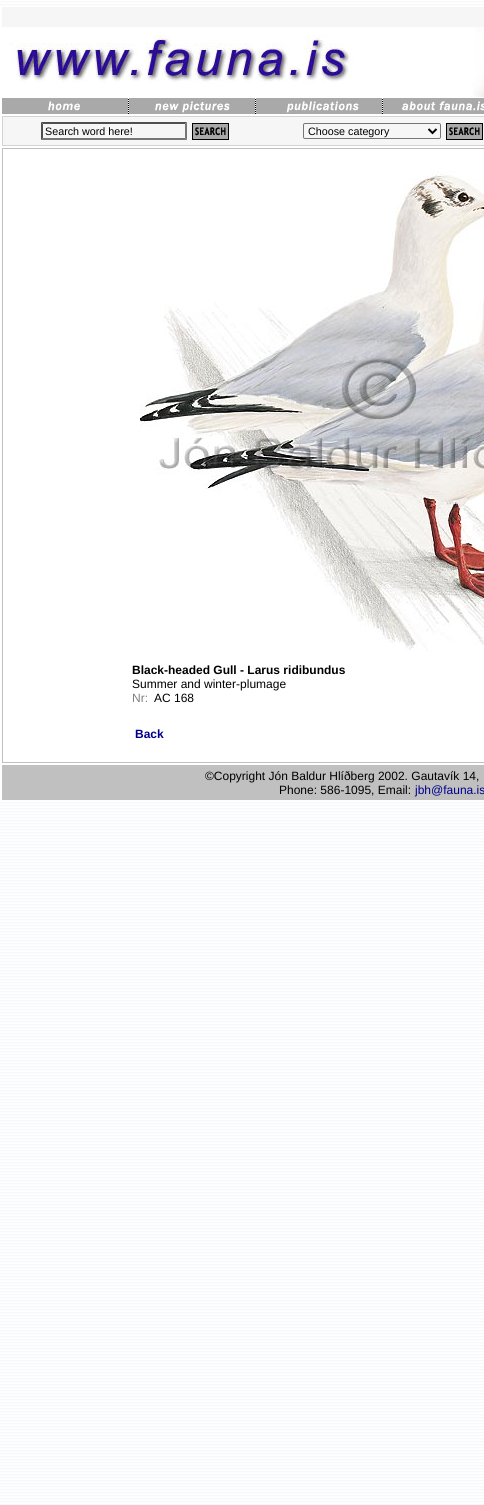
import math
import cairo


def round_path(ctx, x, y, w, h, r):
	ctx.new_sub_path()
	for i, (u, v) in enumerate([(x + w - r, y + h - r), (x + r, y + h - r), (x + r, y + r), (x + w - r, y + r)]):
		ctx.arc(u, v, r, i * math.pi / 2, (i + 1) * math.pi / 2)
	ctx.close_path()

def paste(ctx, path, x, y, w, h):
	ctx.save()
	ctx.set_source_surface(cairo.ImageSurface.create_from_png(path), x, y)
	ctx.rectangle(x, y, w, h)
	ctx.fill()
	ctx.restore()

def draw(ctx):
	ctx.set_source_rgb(1, 1, 1)
	ctx.paint()
	paste(ctx, 'media/1.png', 0, 0, 484, 1505)
	ctx.set_source_rgb(1, 1, 1)
	ctx.rectangle(0, 7, 484, 793)
	ctx.fill()
	ctx.set_source_rgb(0.961, 0.961, 0.961)
	ctx.rectangle(2, 7, 482, 20)
	ctx.fill()
	paste(ctx, 'media/2.png', 10, 27, 474, 70)
	paste(ctx, 'media/3.png', 2, 98, 126, 16)
	paste(ctx, 'media/4.png', 128, 98, 127, 16)
	paste(ctx, 'media/5.png', 255, 98, 127, 16)
	paste(ctx, 'media/6.png', 382, 98, 102, 16)
	ctx.set_source_rgb(0.827, 0.827, 0.827)
	ctx.rectangle(2, 116, 482, 30)
	ctx.fill()
	ctx.set_source_rgb(0.961, 0.961, 0.961)
	ctx.rectangle(3, 117, 481, 28)
	ctx.fill()
	ctx.set_source_rgb(0.31, 0.31, 0.31)
	ctx.new_path()
	ctx.move_to(41, 122)
	ctx.line_to(187, 122)
	ctx.line_to(185, 124)
	ctx.line_to(43, 124)
	ctx.close_path()
	ctx.fill()
	ctx.set_source_rgb(0.463, 0.463, 0.463)
	ctx.new_path()
	ctx.move_to(187, 122)
	ctx.line_to(187, 140)
	ctx.line_to(185, 138)
	ctx.line_to(185, 124)
	ctx.close_path()
	ctx.fill()
	ctx.new_path()
	ctx.move_to(187, 140)
	ctx.line_to(41, 140)
	ctx.line_to(43, 138)
	ctx.line_to(185, 138)
	ctx.close_path()
	ctx.fill()
	ctx.set_source_rgb(0.31, 0.31, 0.31)
	ctx.new_path()
	ctx.move_to(41, 140)
	ctx.line_to(41, 122)
	ctx.line_to(43, 124)
	ctx.line_to(43, 138)
	ctx.close_path()
	ctx.fill()
	ctx.select_font_face('Liberation Sans')
	ctx.set_font_size(10.75)
	ctx.set_source_rgb(0, 0, 0)
	ctx.move_to(45, 135)
	ctx.show_text('Search word here!')
	paste(ctx, 'media/7.png', 192, 123, 37, 17)
	round_path(ctx, 303.5, 123.5, 137, 15, 1.5)
	ctx.set_source_rgb(0.463, 0.463, 0.463)
	ctx.set_line_width(1)
	ctx.stroke()
	ctx.new_path()
	ctx.move_to(428.5, 129)
	ctx.line_to(432.5, 133)
	ctx.line_to(436.5, 129)
	ctx.set_source_rgb(0, 0, 0)
	ctx.set_line_width(2)
	ctx.stroke()
	ctx.move_to(308, 135)
	ctx.show_text('Choose category')
	paste(ctx, 'media/7.png', 446, 123, 37, 17)
	ctx.set_source_rgb(0.753, 0.753, 0.753)
	ctx.rectangle(2, 148, 482, 615)
	ctx.fill()
	ctx.set_source_rgb(1, 1, 1)
	ctx.rectangle(3, 149, 481, 613)
	ctx.fill()
	paste(ctx, 'media/8.png', 140, 171, 344, 481)
	ctx.select_font_face('Liberation Sans', cairo.FONT_SLANT_NORMAL, cairo.FONT_WEIGHT_BOLD)
	ctx.set_font_size(12)
	ctx.set_source_rgb(0, 0, 0)
	ctx.move_to(132, 674)
	ctx.show_text('Black-headed Gull - Larus ridibundus')
	ctx.select_font_face('Liberation Sans')
	ctx.move_to(132, 688)
	ctx.show_text('Summer and winter-plumage')
	ctx.set_source_rgb(0.502, 0.502, 0.502)
	ctx.move_to(132, 702)
	ctx.show_text('Nr:')
	ctx.set_source_rgb(0, 0, 0)
	ctx.move_to(154, 702)
	ctx.show_text('AC 168')
	ctx.select_font_face('Liberation Sans', cairo.FONT_SLANT_NORMAL, cairo.FONT_WEIGHT_BOLD)
	ctx.set_source_rgb(0, 0, 0.545)
	ctx.move_to(135, 738)
	ctx.show_text('Back')
	ctx.set_source_rgb(0.753, 0.753, 0.753)
	ctx.rectangle(2, 765, 482, 35)
	ctx.fill()
	ctx.select_font_face('Liberation Sans')
	ctx.set_source_rgb(0, 0, 0)
	ctx.move_to(205, 780)
	ctx.show_text('©Copyright Jón Baldur Hlíðberg 2002. Gautavík 14,')
	ctx.move_to(279, 794)
	ctx.show_text('Phone: 586-1095, Email:')
	ctx.set_source_rgb(0, 0, 0.545)
	ctx.move_to(415, 794)
	ctx.show_text('jbh@fauna.is')


surface = cairo.ImageSurface(cairo.FORMAT_RGB24, 484, 1505)
ctx = cairo.Context(surface)
options = cairo.FontOptions()
options.set_hint_metrics(cairo.HINT_METRICS_OFF)
options.set_hint_style(cairo.HINT_STYLE_NONE)
ctx.set_font_options(options)
ctx.set_miter_limit(4)
draw(ctx)
surface.write_to_png('image.png')
